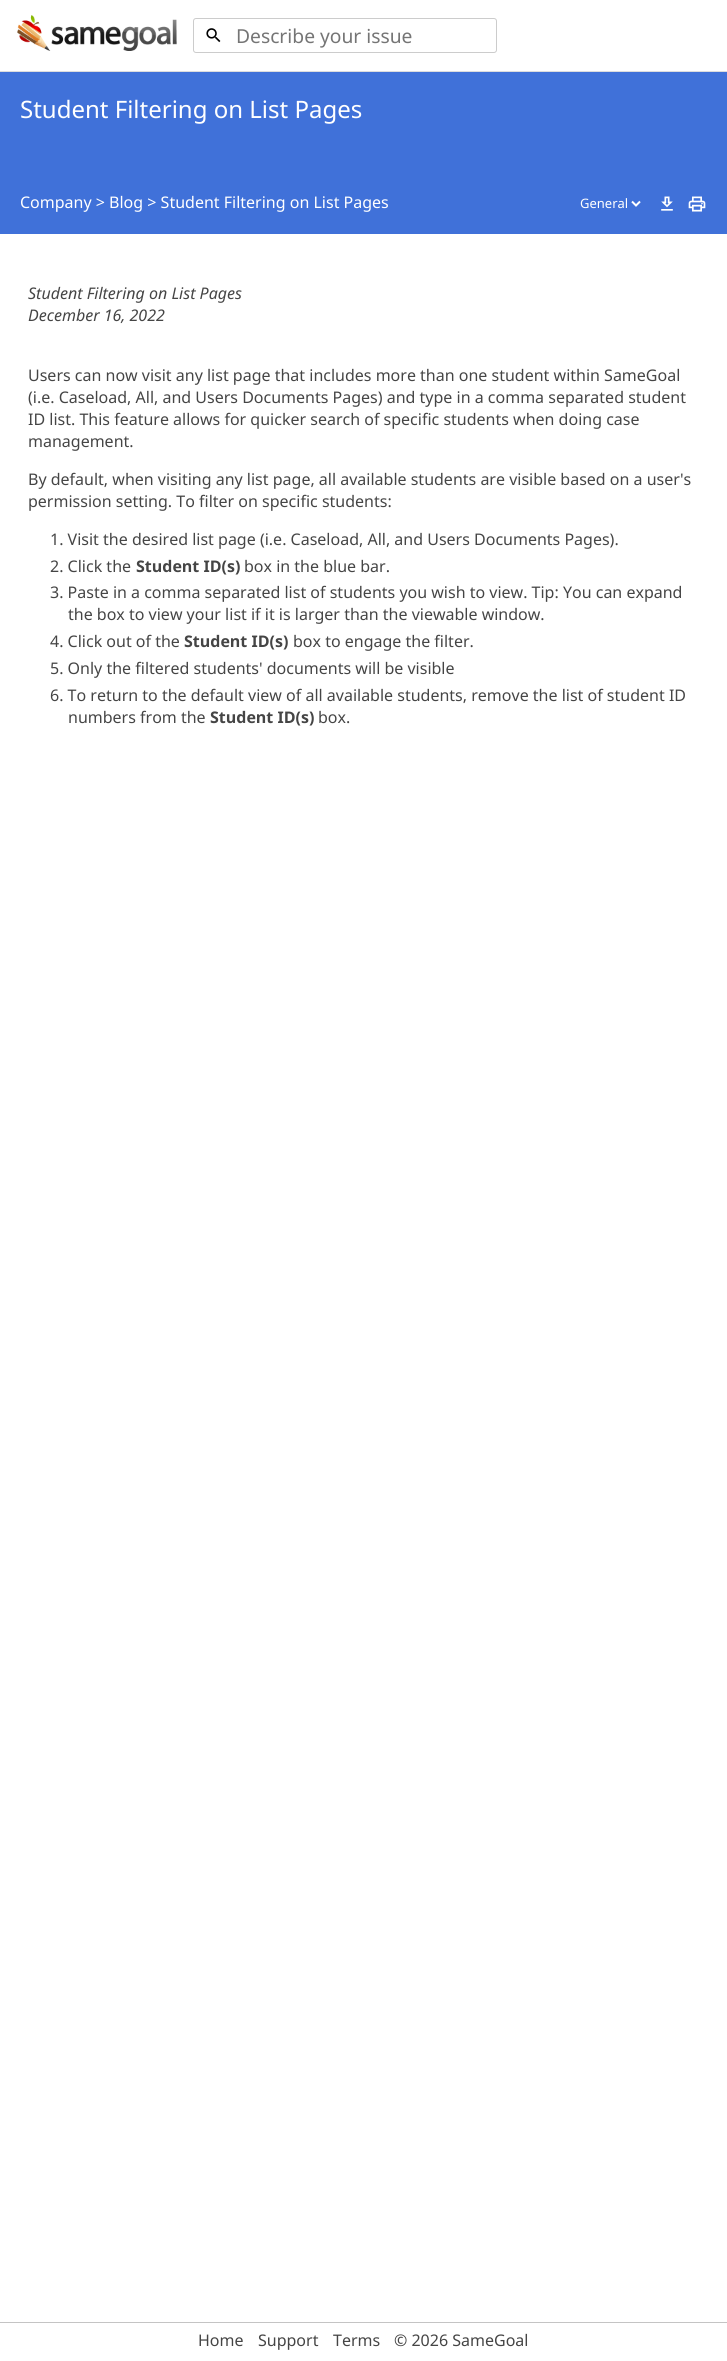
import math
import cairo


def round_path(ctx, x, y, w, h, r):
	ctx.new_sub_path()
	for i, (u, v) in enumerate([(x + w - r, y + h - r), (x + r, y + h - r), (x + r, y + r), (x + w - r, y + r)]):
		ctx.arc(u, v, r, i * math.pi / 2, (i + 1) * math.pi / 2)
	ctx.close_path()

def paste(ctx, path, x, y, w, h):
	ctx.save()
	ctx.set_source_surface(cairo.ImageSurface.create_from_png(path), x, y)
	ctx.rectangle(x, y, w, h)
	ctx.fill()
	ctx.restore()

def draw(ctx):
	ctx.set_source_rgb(1, 1, 1)
	ctx.paint()
	ctx.set_source_rgb(0.867, 0.867, 0.867)
	ctx.rectangle(0, 71, 727, 1)
	ctx.fill()
	paste(ctx, 'media/1.png', 17, 15, 160, 36)
	round_path(ctx, 193.5, 18.5, 303, 34, 2.5)
	ctx.set_source_rgb(0.8, 0.8, 0.8)
	ctx.set_line_width(1)
	ctx.stroke()
	paste(ctx, 'media/2.png', 206, 28, 15, 15)
	ctx.select_font_face('Noto Sans')
	ctx.set_font_size(19.25)
	ctx.set_source_rgb(0.459, 0.459, 0.459)
	ctx.move_to(236, 43)
	ctx.show_text('Describe your issue')
	ctx.set_source_rgb(0.251, 0.443, 0.851)
	ctx.rectangle(0, 72, 727, 162)
	ctx.fill()
	ctx.set_font_size(24)
	ctx.set_source_rgb(1, 1, 1)
	ctx.move_to(20, 118)
	ctx.show_text('Student Filtering on List Pages')
	ctx.set_font_size(16)
	ctx.move_to(20, 208)
	ctx.show_text('Company > Blog > Student Filtering on List Pages')
	ctx.new_path()
	ctx.move_to(632, 201.5)
	ctx.line_to(636, 205.5)
	ctx.line_to(640, 201.5)
	ctx.set_line_width(2)
	ctx.stroke()
	ctx.set_font_size(13)
	ctx.move_to(580, 208)
	ctx.show_text('General')
	paste(ctx, 'media/3.png', 661, 196, 12, 15)
	paste(ctx, 'media/4.png', 688, 196, 18, 16)
	ctx.select_font_face('Noto Sans', cairo.FONT_SLANT_ITALIC)
	ctx.set_font_size(16)
	ctx.set_source_rgb(0.271, 0.271, 0.271)
	ctx.move_to(28, 299)
	ctx.show_text('Student Filtering on List Pages')
	ctx.move_to(28, 321)
	ctx.show_text('December 16, 2022')
	ctx.select_font_face('Noto Sans')
	for x, y, s in [
		(28, 381, 'Users can now visit any list page that includes more than one student within SameGoal'),
		(28, 403, '(i.e. Caseload, All, and Users Documents Pages) and type in a comma separated student'),
		(28, 425, 'ID list. This feature allows for quicker search of specific students when doing case'),
		(28, 447, 'management.'),
		(28, 485, 'By default, when visiting any list page, all available students are visible based on a user\'s'),
		(28, 507, 'permission setting. To filter on specific students:'),
		(50, 545, '1. Visit the desired list page (i.e. Caseload, All, and Users Documents Pages).'),
		(50, 572, '2. Click the'),
	]:
		ctx.move_to(x, y)
		ctx.show_text(s)
	ctx.select_font_face('Noto Sans', cairo.FONT_SLANT_NORMAL, cairo.FONT_WEIGHT_BOLD)
	ctx.move_to(136, 572)
	ctx.show_text('Student ID(s)')
	ctx.select_font_face('Noto Sans')
	for x, y, s in [
		(244, 572, 'box in the blue bar.'),
		(50, 598, '3. Paste in a comma separated list of students you wish to view. Tip: You can expand'),
		(68, 620, 'the box to view your list if it is larger than the viewable window.'),
		(50, 647, '4. Click out of the'),
	]:
		ctx.move_to(x, y)
		ctx.show_text(s)
	ctx.select_font_face('Noto Sans', cairo.FONT_SLANT_NORMAL, cairo.FONT_WEIGHT_BOLD)
	ctx.move_to(184, 647)
	ctx.show_text('Student ID(s)')
	ctx.select_font_face('Noto Sans')
	for x, y, s in [
		(293, 647, 'box to engage the filter.'),
		(50, 674, '5. Only the filtered students\' documents will be visible'),
		(50, 701, '6. To return to the default view of all available students, remove the list of student ID'),
		(68, 723, 'numbers from the'),
	]:
		ctx.move_to(x, y)
		ctx.show_text(s)
	ctx.select_font_face('Noto Sans', cairo.FONT_SLANT_NORMAL, cairo.FONT_WEIGHT_BOLD)
	ctx.move_to(210, 723)
	ctx.show_text('Student ID(s)')
	ctx.select_font_face('Noto Sans')
	ctx.move_to(318, 723)
	ctx.show_text('box.')
	ctx.set_source_rgb(0.769, 0.769, 0.769)
	ctx.rectangle(0, 2322, 727, 1)
	ctx.fill()
	ctx.set_source_rgb(0.271, 0.271, 0.271)
	for x, y, s in [
		(198, 2346, 'Home'),
		(258, 2346, 'Support'),
		(333, 2346, 'Terms'),
		(394, 2346, '© 2026 SameGoal'),
	]:
		ctx.move_to(x, y)
		ctx.show_text(s)


surface = cairo.ImageSurface(cairo.FORMAT_RGB24, 727, 2361)
ctx = cairo.Context(surface)
options = cairo.FontOptions()
options.set_hint_metrics(cairo.HINT_METRICS_OFF)
options.set_hint_style(cairo.HINT_STYLE_NONE)
ctx.set_font_options(options)
ctx.set_miter_limit(4)
draw(ctx)
surface.write_to_png('image.png')
